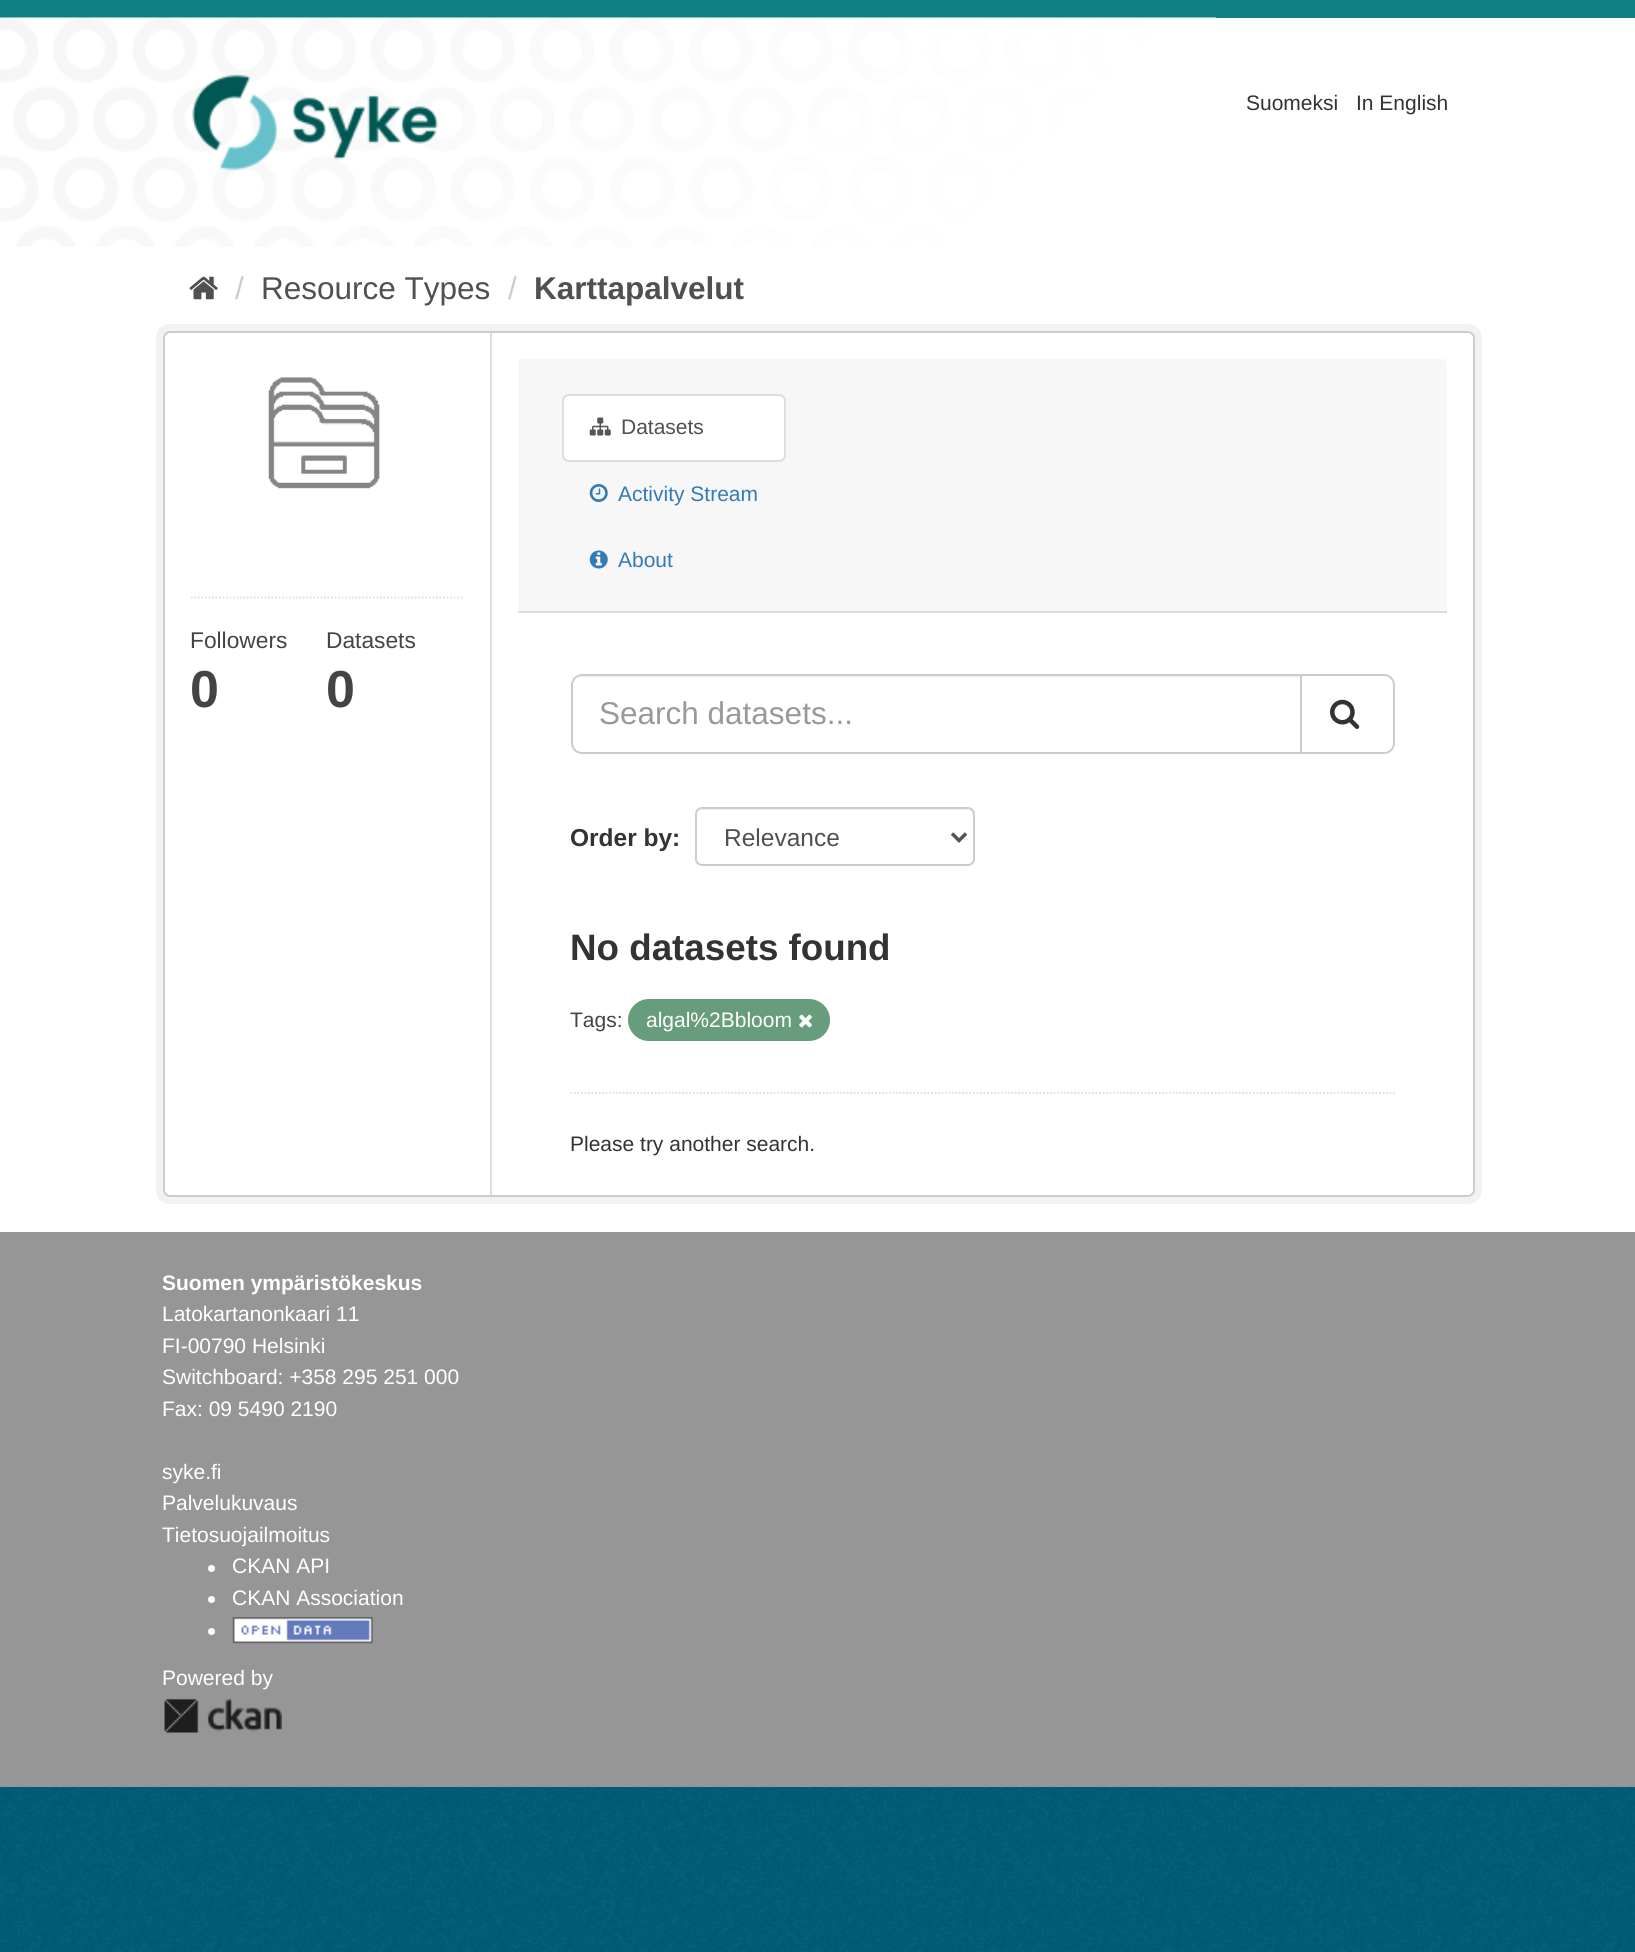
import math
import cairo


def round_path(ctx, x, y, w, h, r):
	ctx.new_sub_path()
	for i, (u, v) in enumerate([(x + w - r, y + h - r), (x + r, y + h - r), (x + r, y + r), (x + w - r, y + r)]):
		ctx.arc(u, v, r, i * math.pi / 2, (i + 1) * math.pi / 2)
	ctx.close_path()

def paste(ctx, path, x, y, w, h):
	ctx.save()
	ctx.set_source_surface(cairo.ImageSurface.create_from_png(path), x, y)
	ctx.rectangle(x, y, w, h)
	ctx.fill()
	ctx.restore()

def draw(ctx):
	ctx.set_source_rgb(0, 0.365, 0.478)
	ctx.paint()
	paste(ctx, 'media/1.png', 0, 1787, 1635, 165)
	ctx.set_source_rgb(0.063, 0.502, 0.51)
	ctx.rectangle(0, 0, 1635, 18)
	ctx.fill()
	ctx.set_source_rgb(1, 1, 1)
	ctx.rectangle(0, 18, 1635, 1214)
	ctx.fill()
	paste(ctx, 'media/2.png', 0, 17, 1217, 230)
	paste(ctx, 'media/3.png', 192, 74, 246, 97)
	ctx.select_font_face('Liberation Sans')
	ctx.set_font_size(21)
	ctx.set_source_rgb(0.2, 0.2, 0.2)
	ctx.move_to(1246, 110)
	ctx.show_text('Suomeksi')
	ctx.move_to(1356, 110)
	ctx.show_text('In English')
	paste(ctx, 'media/4.png', 189, 276, 29, 24)
	ctx.set_font_size(31.5)
	ctx.set_source_rgb(0.8, 0.8, 0.8)
	ctx.move_to(235, 299)
	ctx.show_text('/')
	ctx.set_source_rgb(0.314, 0.314, 0.314)
	ctx.move_to(261, 299)
	ctx.show_text('Resource Types')
	ctx.set_source_rgb(0.8, 0.8, 0.8)
	ctx.move_to(508, 299)
	ctx.show_text('/')
	ctx.select_font_face('Liberation Sans', cairo.FONT_SLANT_NORMAL, cairo.FONT_WEIGHT_BOLD)
	ctx.set_source_rgb(0.314, 0.314, 0.314)
	ctx.move_to(534, 299)
	ctx.show_text('Karttapalvelut')
	round_path(ctx, 159.5, 327.5, 1319, 873, 10.5)
	ctx.set_source_rgb(0.949, 0.949, 0.949)
	ctx.set_line_width(7)
	ctx.stroke()
	ctx.set_source_rgb(1, 1, 1)
	round_path(ctx, 164, 332, 1310, 864, 6)
	ctx.fill_preserve()
	ctx.set_source_rgb(0.8, 0.8, 0.8)
	ctx.set_line_width(2)
	ctx.stroke()
	paste(ctx, 'media/5.png', 268, 377, 112, 112)
	ctx.new_path()
	ctx.move_to(191, 597.5)
	ctx.line_to(464, 597.5)
	ctx.set_source_rgb(0.867, 0.867, 0.867)
	ctx.set_line_width(1.8)
	ctx.set_dash([1.75, 1.75])
	ctx.stroke()
	ctx.select_font_face('Liberation Sans')
	ctx.set_font_size(22.75)
	ctx.set_source_rgb(0.267, 0.267, 0.267)
	ctx.move_to(190, 648)
	ctx.show_text('Followers')
	ctx.select_font_face('Liberation Sans', cairo.FONT_SLANT_NORMAL, cairo.FONT_WEIGHT_BOLD)
	ctx.set_font_size(52)
	ctx.move_to(190, 707)
	ctx.show_text('0')
	ctx.select_font_face('Liberation Sans')
	ctx.set_font_size(22.75)
	ctx.move_to(326, 648)
	ctx.show_text('Datasets')
	ctx.select_font_face('Liberation Sans', cairo.FONT_SLANT_NORMAL, cairo.FONT_WEIGHT_BOLD)
	ctx.set_font_size(52)
	ctx.move_to(326, 707)
	ctx.show_text('0')
	ctx.set_source_rgb(0.867, 0.867, 0.867)
	ctx.rectangle(490, 333, 2, 862)
	ctx.fill()
	ctx.set_source_rgb(0.965, 0.965, 0.965)
	ctx.new_path()
	ctx.move_to(518, 359)
	ctx.line_to(1442, 359)
	ctx.curve_to(1445, 359, 1447, 361, 1447, 364)
	ctx.line_to(1447, 613)
	ctx.line_to(518, 613)
	ctx.close_path()
	ctx.fill()
	ctx.set_source_rgb(0.867, 0.867, 0.867)
	ctx.rectangle(518, 611, 929, 2)
	ctx.fill()
	ctx.set_source_rgb(1, 1, 1)
	round_path(ctx, 563, 395, 222, 66, 6)
	ctx.fill_preserve()
	ctx.set_source_rgb(0.867, 0.867, 0.867)
	ctx.set_line_width(2)
	ctx.set_dash([])
	ctx.stroke()
	paste(ctx, 'media/6.png', 589, 417, 22, 19)
	ctx.select_font_face('Liberation Sans')
	ctx.set_font_size(21)
	ctx.set_source_rgb(0.314, 0.314, 0.314)
	ctx.move_to(621, 434)
	ctx.show_text('Datasets')
	paste(ctx, 'media/7.png', 589, 484, 19, 18)
	ctx.set_source_rgb(0.2, 0.478, 0.718)
	ctx.move_to(618, 501)
	ctx.show_text('Activity Stream')
	paste(ctx, 'media/8.png', 589, 550, 19, 19)
	ctx.move_to(618, 567)
	ctx.show_text('About')
	ctx.new_path()
	ctx.move_to(570.5, 1093)
	ctx.line_to(1395, 1093)
	ctx.set_source_rgb(0.867, 0.867, 0.867)
	ctx.set_line_width(1.8)
	ctx.set_dash([1.75, 1.75])
	ctx.stroke()
	ctx.set_source_rgb(0.925, 0.925, 0.925)
	ctx.new_path()
	ctx.move_to(581, 677)
	ctx.line_to(1300, 677)
	ctx.line_to(1300, 676)
	ctx.line_to(581, 676)
	ctx.curve_to(576, 676, 572, 680, 572, 685)
	ctx.line_to(572, 686)
	ctx.curve_to(572, 681, 576, 677, 581, 677)
	ctx.close_path()
	ctx.fill()
	ctx.new_path()
	ctx.move_to(582, 675)
	ctx.line_to(1301, 675)
	ctx.line_to(1301, 753)
	ctx.line_to(582, 753)
	ctx.curve_to(576.5, 753, 572, 748.5, 572, 743)
	ctx.line_to(572, 685)
	ctx.curve_to(572, 679.5, 576.5, 675, 582, 675)
	ctx.close_path()
	ctx.set_source_rgb(0.8, 0.8, 0.8)
	ctx.set_line_width(2)
	ctx.set_dash([])
	ctx.stroke()
	ctx.set_font_size(31.5)
	ctx.set_source_rgb(0.6, 0.6, 0.6)
	ctx.move_to(599, 724)
	ctx.show_text('Search datasets...')
	ctx.set_source_rgb(1, 1, 1)
	ctx.new_path()
	ctx.move_to(1301, 675)
	ctx.line_to(1384, 675)
	ctx.curve_to(1389.5, 675, 1394, 679.5, 1394, 685)
	ctx.line_to(1394, 743)
	ctx.curve_to(1394, 748.5, 1389.5, 753, 1384, 753)
	ctx.line_to(1301, 753)
	ctx.close_path()
	ctx.fill_preserve()
	ctx.set_source_rgb(0.8, 0.8, 0.8)
	ctx.stroke()
	paste(ctx, 'media/9.png', 1330, 699, 30, 30)
	ctx.select_font_face('Liberation Sans', cairo.FONT_SLANT_NORMAL, cairo.FONT_WEIGHT_BOLD)
	ctx.set_font_size(24.5)
	ctx.set_source_rgb(0.2, 0.2, 0.2)
	ctx.move_to(570, 846)
	ctx.show_text('Order by:')
	ctx.set_source_rgb(0.925, 0.925, 0.925)
	ctx.new_path()
	ctx.move_to(702, 810)
	ctx.line_to(968, 810)
	ctx.curve_to(971, 810, 973, 813, 973, 816)
	ctx.line_to(973, 814)
	ctx.curve_to(973, 811, 971, 809, 968, 809)
	ctx.line_to(702, 809)
	ctx.curve_to(700, 809, 698, 811, 697, 813)
	ctx.curve_to(698, 811, 700, 810, 702, 810)
	ctx.close_path()
	ctx.fill()
	round_path(ctx, 696, 808, 278, 57, 6)
	ctx.set_source_rgb(0.8, 0.8, 0.8)
	ctx.stroke()
	ctx.new_path()
	ctx.move_to(952, 833.5)
	ctx.line_to(959, 840.5)
	ctx.line_to(966, 833.5)
	ctx.set_source_rgb(0.333, 0.333, 0.333)
	ctx.set_line_width(3.5)
	ctx.stroke()
	ctx.select_font_face('Liberation Sans')
	ctx.set_source_rgb(0.314, 0.314, 0.314)
	ctx.move_to(724, 846)
	ctx.show_text('Relevance')
	ctx.select_font_face('Liberation Sans', cairo.FONT_SLANT_NORMAL, cairo.FONT_WEIGHT_BOLD)
	ctx.set_font_size(36.75)
	ctx.set_source_rgb(0.2, 0.2, 0.2)
	ctx.move_to(570, 960)
	ctx.show_text('No datasets found')
	ctx.select_font_face('Liberation Sans')
	ctx.set_font_size(21)
	ctx.set_source_rgb(0.267, 0.267, 0.267)
	ctx.move_to(570, 1027)
	ctx.show_text('Tags:')
	ctx.set_source_rgb(0.404, 0.616, 0.49)
	round_path(ctx, 628, 999, 202, 42, 21)
	ctx.fill()
	ctx.set_source_rgb(1, 1, 1)
	ctx.move_to(646, 1027)
	ctx.show_text('algal%2Bbloom')
	paste(ctx, 'media/10.png', 799, 1014, 13, 14)
	ctx.set_source_rgb(0.2, 0.2, 0.2)
	ctx.move_to(570, 1151)
	ctx.show_text('Please try another search.')
	ctx.set_source_rgb(0.588, 0.588, 0.588)
	ctx.rectangle(0, 1232, 1635, 555)
	ctx.fill()
	ctx.select_font_face('Liberation Sans', cairo.FONT_SLANT_NORMAL, cairo.FONT_WEIGHT_BOLD)
	ctx.set_source_rgb(1, 1, 1)
	ctx.move_to(162, 1290)
	ctx.show_text('Suomen ympäristökeskus')
	ctx.select_font_face('Liberation Sans')
	for x, y, s in [
		(162, 1321, 'Latokartanonkaari 11'),
		(162, 1353, 'FI-00790 Helsinki'),
		(162, 1384, 'Switchboard: +358 295 251 000'),
		(162, 1416, 'Fax: 09 5490 2190'),
		(162, 1479, 'syke.fi'),
		(162, 1510, 'Palvelukuvaus'),
		(162, 1542, 'Tietosuojailmoitus'),
	]:
		ctx.move_to(x, y)
		ctx.show_text(s)
	ctx.new_path()
	ctx.arc(211.5, 1568.5, 3.5, 0, 2 * math.pi)
	ctx.fill()
	ctx.move_to(232, 1573)
	ctx.show_text('CKAN API')
	ctx.new_path()
	ctx.arc(211.5, 1599.5, 3.5, 0, 2 * math.pi)
	ctx.fill()
	ctx.move_to(232, 1605)
	ctx.show_text('CKAN Association')
	ctx.new_path()
	ctx.arc(211.5, 1631.5, 3.5, 0, 2 * math.pi)
	ctx.fill()
	paste(ctx, 'media/11.png', 232, 1617, 141, 27)
	ctx.move_to(162, 1685)
	ctx.show_text('Powered by')
	paste(ctx, 'media/12.png', 164, 1698, 118, 35)


surface = cairo.ImageSurface(cairo.FORMAT_RGB24, 1635, 1952)
ctx = cairo.Context(surface)
options = cairo.FontOptions()
options.set_hint_metrics(cairo.HINT_METRICS_OFF)
options.set_hint_style(cairo.HINT_STYLE_NONE)
ctx.set_font_options(options)
ctx.set_miter_limit(4)
draw(ctx)
surface.write_to_png('image.png')
